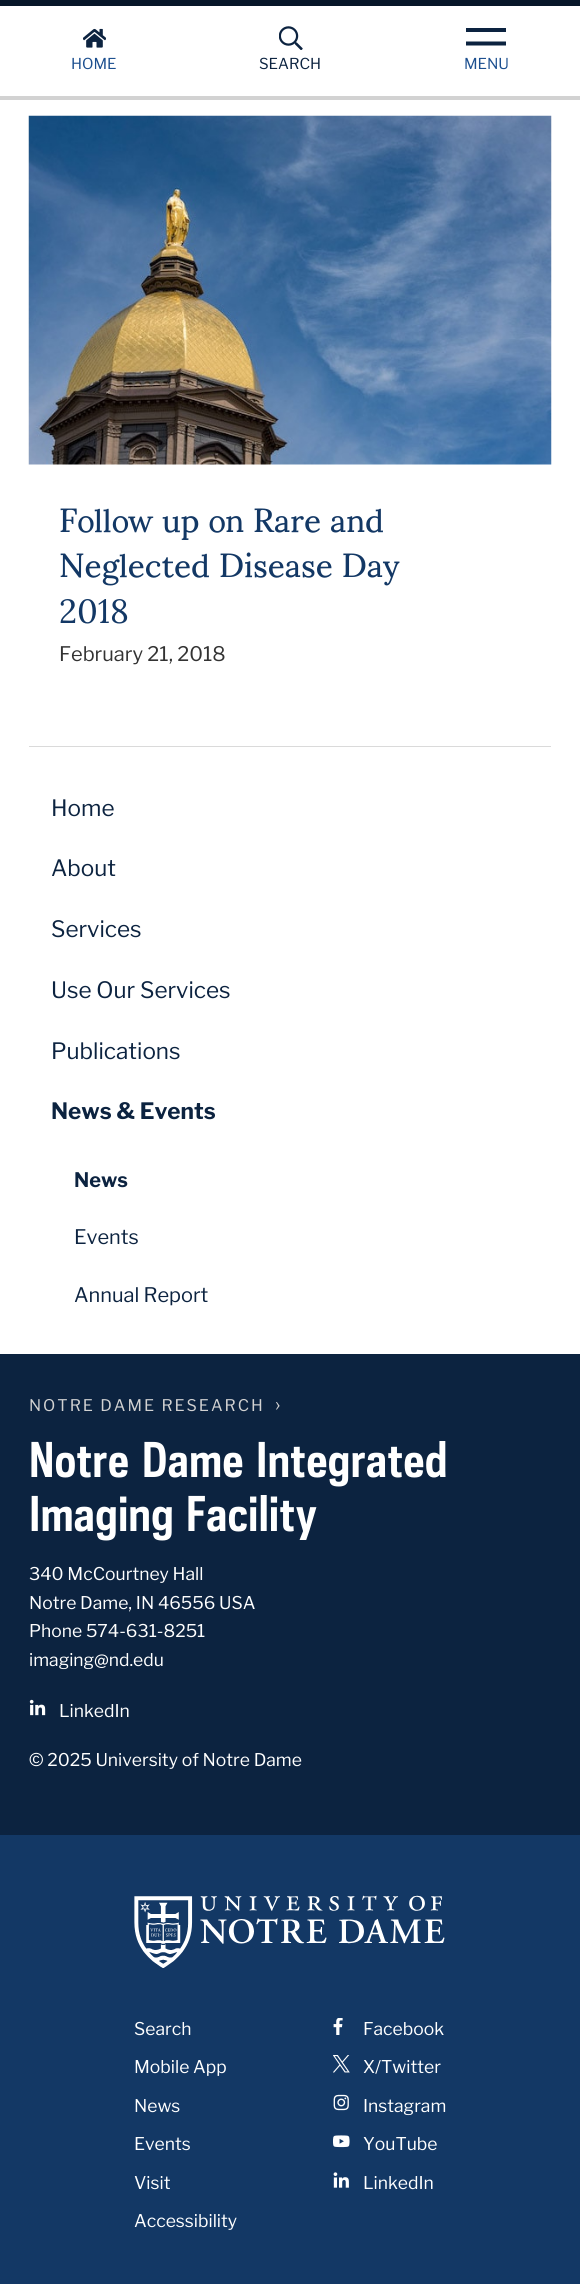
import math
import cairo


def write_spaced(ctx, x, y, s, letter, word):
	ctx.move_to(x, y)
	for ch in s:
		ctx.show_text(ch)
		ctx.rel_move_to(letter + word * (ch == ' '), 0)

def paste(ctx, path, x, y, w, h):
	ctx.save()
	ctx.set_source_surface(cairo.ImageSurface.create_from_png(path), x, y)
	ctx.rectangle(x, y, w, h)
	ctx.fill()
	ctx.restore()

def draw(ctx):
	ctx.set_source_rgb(1, 1, 1)
	ctx.paint()
	ctx.set_source_rgb(0.031, 0.086, 0.161)
	ctx.rectangle(0, 0, 580, 6)
	ctx.fill()
	ctx.set_source_rgb(0.824, 0.824, 0.824)
	ctx.rectangle(0, 96, 580, 4)
	ctx.fill()
	paste(ctx, 'media/1.png', 83, 28, 23, 20)
	ctx.select_font_face('Libre Franklin')
	ctx.set_font_size(15)
	ctx.set_source_rgb(0.11, 0.31, 0.561)
	ctx.move_to(71, 69)
	ctx.show_text('HOME')
	paste(ctx, 'media/2.png', 279, 26, 24, 24)
	ctx.set_source_rgb(0.047, 0.137, 0.251)
	ctx.move_to(259, 69)
	ctx.show_text('SEARCH')
	ctx.rectangle(466, 28, 40, 4)
	ctx.fill()
	ctx.new_path()
	ctx.move_to(468, 43.5)
	ctx.line_to(504, 43.5)
	ctx.set_line_width(4)
	ctx.set_line_cap(cairo.LINE_CAP_SQUARE)
	ctx.stroke()
	ctx.set_source_rgb(0.11, 0.31, 0.561)
	ctx.move_to(464, 69)
	ctx.show_text('MENU')
	paste(ctx, 'media/3.png', 28, 115, 524, 350)
	ctx.select_font_face('Sumana')
	ctx.set_font_size(33.5)
	ctx.set_source_rgb(0.078, 0.22, 0.396)
	for x, y, s in [
		(59, 532, 'Follow up on Rare and'),
		(59, 577, 'Neglected Disease Day'),
		(59, 623, '2018'),
	]:
		ctx.move_to(x, y)
		ctx.show_text(s)
	ctx.select_font_face('Libre Franklin')
	ctx.set_font_size(20)
	ctx.set_source_rgb(0.2, 0.2, 0.2)
	ctx.move_to(59, 661)
	ctx.show_text('February 21, 2018')
	ctx.set_source_rgb(0.855, 0.855, 0.855)
	ctx.rectangle(29, 746, 522, 1)
	ctx.fill()
	ctx.set_font_size(22.5)
	ctx.set_source_rgb(0.047, 0.137, 0.251)
	for x, y, s in [
		(51, 816, 'Home'),
		(51, 876, 'About'),
		(51, 937, 'Services'),
		(51, 998, 'Use Our Services'),
		(51, 1059, 'Publications'),
	]:
		ctx.move_to(x, y)
		ctx.show_text(s)
	ctx.select_font_face('Libre Franklin', cairo.FONT_SLANT_NORMAL, cairo.FONT_WEIGHT_BOLD)
	ctx.move_to(51, 1119)
	ctx.show_text('News & Events')
	ctx.set_font_size(20)
	ctx.move_to(74, 1187)
	ctx.show_text('News')
	ctx.select_font_face('Libre Franklin')
	ctx.move_to(74, 1244)
	ctx.show_text('Events')
	ctx.move_to(74, 1302)
	ctx.show_text('Annual Report')
	ctx.rectangle(0, 1354, 580, 481)
	ctx.fill()
	ctx.set_font_size(16)
	ctx.set_source_rgb(0.824, 0.824, 0.824)
	write_spaced(ctx, 29, 1411, 'NOTRE DAME RESEARCH', 2, 0)
	ctx.set_font_size(20)
	write_spaced(ctx, 275, 1411, '›', 2, 0)
	ctx.select_font_face('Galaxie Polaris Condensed', cairo.FONT_SLANT_NORMAL, cairo.FONT_WEIGHT_BOLD)
	ctx.set_font_size(45)
	ctx.set_source_rgb(1, 1, 1)
	for x, y, s in [
		(29, 1477, 'Notre'),
		(142, 1477, 'Dame'),
		(256, 1477, 'Integrated'),
		(29, 1531, 'Imaging'),
		(186, 1531, 'Facility'),
	]:
		ctx.move_to(x, y)
		ctx.show_text(s)
	ctx.select_font_face('Libre Franklin')
	ctx.set_font_size(17.5)
	for x, y, s in [
		(29, 1580, '340 McCourtney Hall'),
		(29, 1609, 'Notre Dame, IN 46556 USA'),
		(29, 1637, 'Phone 574-631-8251'),
		(29, 1666, 'imaging@nd.edu'),
	]:
		ctx.move_to(x, y)
		ctx.show_text(s)
	paste(ctx, 'media/4.png', 29, 1699, 17, 17)
	ctx.move_to(59, 1717)
	ctx.show_text('LinkedIn')
	ctx.move_to(29, 1766)
	ctx.show_text('© 2025 University of Notre Dame')
	ctx.set_source_rgb(0.078, 0.22, 0.396)
	ctx.rectangle(0, 1835, 580, 449)
	ctx.fill()
	paste(ctx, 'media/5.png', 134, 1895, 311, 73)
	ctx.set_source_rgb(1, 1, 1)
	for x, y, s in [
		(134, 2035, 'Search'),
		(134, 2073, 'Mobile App'),
		(134, 2112, 'News'),
		(134, 2150, 'Events'),
		(134, 2189, 'Visit'),
		(134, 2227, 'Accessibility'),
	]:
		ctx.move_to(x, y)
		ctx.show_text(s)
	paste(ctx, 'media/6.png', 333, 2018, 10, 17)
	ctx.move_to(363, 2035)
	ctx.show_text('Facebook')
	paste(ctx, 'media/7.png', 333, 2055, 17, 18)
	ctx.move_to(363, 2073)
	ctx.show_text('X/Twitter')
	paste(ctx, 'media/8.png', 333, 2094, 16, 17)
	ctx.move_to(363, 2112)
	ctx.show_text('Instagram')
	paste(ctx, 'media/9.png', 333, 2135, 17, 13)
	ctx.move_to(363, 2150)
	ctx.show_text('YouTube')
	paste(ctx, 'media/10.png', 333, 2172, 16, 16)
	ctx.move_to(363, 2189)
	ctx.show_text('LinkedIn')


surface = cairo.ImageSurface(cairo.FORMAT_RGB24, 580, 2284)
ctx = cairo.Context(surface)
options = cairo.FontOptions()
options.set_hint_metrics(cairo.HINT_METRICS_OFF)
options.set_hint_style(cairo.HINT_STYLE_NONE)
ctx.set_font_options(options)
ctx.set_miter_limit(4)
draw(ctx)
surface.write_to_png('image.png')
